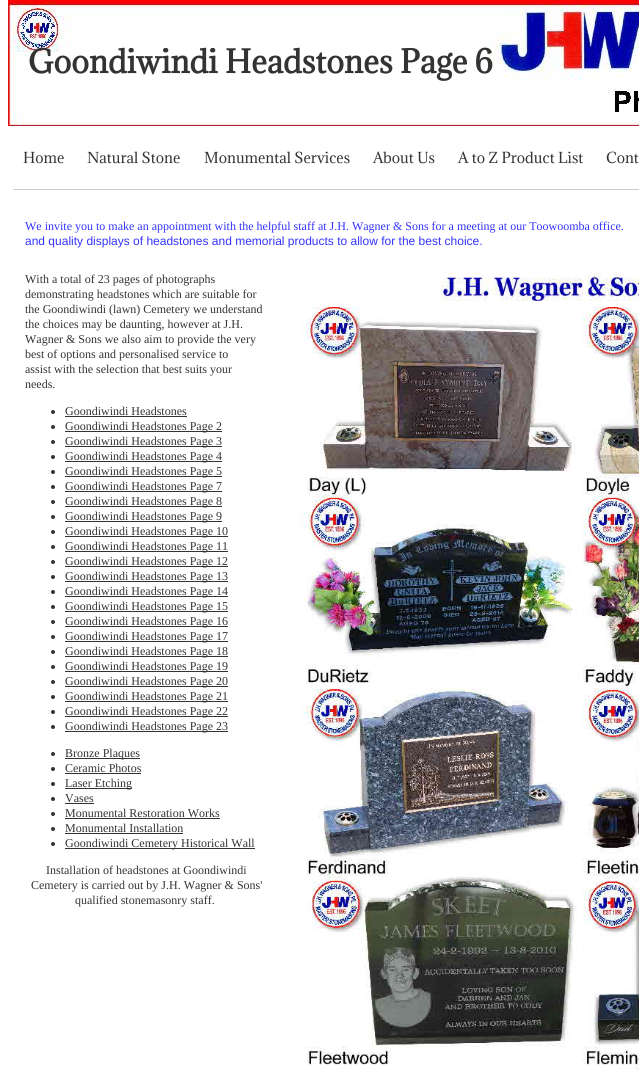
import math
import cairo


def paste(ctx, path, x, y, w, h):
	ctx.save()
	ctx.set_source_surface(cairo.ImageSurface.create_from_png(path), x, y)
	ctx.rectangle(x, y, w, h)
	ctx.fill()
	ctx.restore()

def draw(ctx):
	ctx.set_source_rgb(1, 1, 1)
	ctx.paint()
	paste(ctx, 'media/1.png', 8, 0, 631, 126)
	ctx.select_font_face('Adamina', cairo.FONT_SLANT_NORMAL, cairo.FONT_WEIGHT_BOLD)
	ctx.set_font_size(30)
	ctx.set_source_rgb(0.2, 0.2, 0.2)
	ctx.move_to(28, 73)
	ctx.show_text('Goondiwindi Headstones Page 6')
	ctx.set_source_rgb(0.8, 0.8, 0.8)
	ctx.rectangle(13, 189, 626, 1)
	ctx.fill()
	ctx.select_font_face('Adamina')
	ctx.set_font_size(14)
	ctx.set_source_rgb(0.2, 0.2, 0.2)
	for x, y, s in [
		(23, 163, 'Home'),
		(87, 163, 'Natural Stone'),
		(204, 163, 'Monumental Services'),
		(373, 163, 'About Us'),
		(458, 163, 'A to Z Product List'),
		(606, 163, 'Cont'),
	]:
		ctx.move_to(x, y)
		ctx.show_text(s)
	ctx.select_font_face('Liberation Serif')
	ctx.set_font_size(12)
	ctx.set_source_rgb(0.2, 0.2, 1)
	ctx.move_to(25, 230)
	ctx.show_text('We invite you to make an appointment with the helpful staff at J.H. Wagner & Sons for a meeting at our Toowoomba office.')
	ctx.select_font_face('Liberation Sans')
	ctx.move_to(25, 245)
	ctx.show_text('and quality displays of headstones and memorial products to allow for the best choice.')
	ctx.select_font_face('Liberation Serif')
	ctx.set_source_rgb(0.2, 0.2, 0.2)
	for x, y, s in [
		(25, 283, 'With a total of 23 pages of photographs'),
		(25, 298, 'demonstrating headstones which are suitable for'),
		(25, 313, 'the Goondiwindi (lawn) Cemetery we understand'),
		(25, 328, 'the choices may be daunting, however at J.H.'),
		(25, 343, 'Wagner & Sons we also aim to provide the very'),
		(25, 358, 'best of options and personalised service to'),
		(25, 373, 'assist with the selection that best suits your'),
		(25, 388, 'needs.'),
	]:
		ctx.move_to(x, y)
		ctx.show_text(s)
	ctx.new_path()
	ctx.arc(53, 412, 2, 0, 2 * math.pi)
	ctx.fill()
	ctx.move_to(65, 415)
	ctx.show_text('Goondiwindi Headstones')
	ctx.rectangle(65, 416, 122, 1)
	ctx.fill()
	ctx.arc(53, 427, 2, 0, 2 * math.pi)
	ctx.fill()
	ctx.rectangle(65, 431, 157, 1)
	ctx.fill()
	ctx.move_to(65, 430)
	ctx.show_text('Goondiwindi Headstones Page 2')
	ctx.new_path()
	ctx.arc(53, 442, 2, 0, 2 * math.pi)
	ctx.fill()
	ctx.rectangle(65, 446, 157, 1)
	ctx.fill()
	ctx.move_to(65, 445)
	ctx.show_text('Goondiwindi Headstones Page 3')
	ctx.new_path()
	ctx.arc(53, 457, 2, 0, 2 * math.pi)
	ctx.fill()
	ctx.rectangle(65, 461, 157, 1)
	ctx.fill()
	ctx.move_to(65, 460)
	ctx.show_text('Goondiwindi Headstones Page 4')
	ctx.new_path()
	ctx.arc(53, 472, 2, 0, 2 * math.pi)
	ctx.fill()
	ctx.rectangle(65, 476, 157, 1)
	ctx.fill()
	ctx.move_to(65, 475)
	ctx.show_text('Goondiwindi Headstones Page 5')
	ctx.new_path()
	ctx.arc(53, 487, 2, 0, 2 * math.pi)
	ctx.fill()
	ctx.rectangle(65, 491, 157, 1)
	ctx.fill()
	ctx.move_to(65, 490)
	ctx.show_text('Goondiwindi Headstones Page 7')
	ctx.new_path()
	ctx.arc(53, 502, 2, 0, 2 * math.pi)
	ctx.fill()
	ctx.rectangle(65, 506, 157, 1)
	ctx.fill()
	ctx.move_to(65, 505)
	ctx.show_text('Goondiwindi Headstones Page 8')
	ctx.new_path()
	ctx.arc(53, 517, 2, 0, 2 * math.pi)
	ctx.fill()
	ctx.rectangle(65, 521, 157, 1)
	ctx.fill()
	ctx.move_to(65, 520)
	ctx.show_text('Goondiwindi Headstones Page 9')
	ctx.new_path()
	ctx.arc(53, 532, 2, 0, 2 * math.pi)
	ctx.fill()
	ctx.rectangle(65, 536, 163, 1)
	ctx.fill()
	ctx.move_to(65, 535)
	ctx.show_text('Goondiwindi Headstones Page 10')
	ctx.new_path()
	ctx.arc(53, 547, 2, 0, 2 * math.pi)
	ctx.fill()
	ctx.rectangle(65, 551, 163, 1)
	ctx.fill()
	ctx.move_to(65, 550)
	ctx.show_text('Goondiwindi Headstones Page 11')
	ctx.new_path()
	ctx.arc(53, 562, 2, 0, 2 * math.pi)
	ctx.fill()
	ctx.rectangle(65, 566, 163, 1)
	ctx.fill()
	ctx.move_to(65, 565)
	ctx.show_text('Goondiwindi Headstones Page 12')
	ctx.new_path()
	ctx.arc(53, 577, 2, 0, 2 * math.pi)
	ctx.fill()
	ctx.rectangle(65, 581, 163, 1)
	ctx.fill()
	ctx.move_to(65, 580)
	ctx.show_text('Goondiwindi Headstones Page 13')
	ctx.new_path()
	ctx.arc(53, 592, 2, 0, 2 * math.pi)
	ctx.fill()
	ctx.rectangle(65, 596, 163, 1)
	ctx.fill()
	ctx.move_to(65, 595)
	ctx.show_text('Goondiwindi Headstones Page 14')
	ctx.new_path()
	ctx.arc(53, 607, 2, 0, 2 * math.pi)
	ctx.fill()
	ctx.rectangle(65, 611, 163, 1)
	ctx.fill()
	ctx.move_to(65, 610)
	ctx.show_text('Goondiwindi Headstones Page 15')
	ctx.new_path()
	ctx.arc(53, 622, 2, 0, 2 * math.pi)
	ctx.fill()
	ctx.rectangle(65, 626, 163, 1)
	ctx.fill()
	ctx.move_to(65, 625)
	ctx.show_text('Goondiwindi Headstones Page 16')
	ctx.new_path()
	ctx.arc(53, 637, 2, 0, 2 * math.pi)
	ctx.fill()
	ctx.rectangle(65, 641, 163, 1)
	ctx.fill()
	ctx.move_to(65, 640)
	ctx.show_text('Goondiwindi Headstones Page 17')
	ctx.new_path()
	ctx.arc(53, 652, 2, 0, 2 * math.pi)
	ctx.fill()
	ctx.rectangle(65, 656, 163, 1)
	ctx.fill()
	ctx.move_to(65, 655)
	ctx.show_text('Goondiwindi Headstones Page 18')
	ctx.new_path()
	ctx.arc(53, 667, 2, 0, 2 * math.pi)
	ctx.fill()
	ctx.rectangle(65, 671, 163, 1)
	ctx.fill()
	ctx.move_to(65, 670)
	ctx.show_text('Goondiwindi Headstones Page 19')
	ctx.new_path()
	ctx.arc(53, 682, 2, 0, 2 * math.pi)
	ctx.fill()
	ctx.rectangle(65, 686, 163, 1)
	ctx.fill()
	ctx.move_to(65, 685)
	ctx.show_text('Goondiwindi Headstones Page 20')
	ctx.new_path()
	ctx.arc(53, 697, 2, 0, 2 * math.pi)
	ctx.fill()
	ctx.rectangle(65, 701, 163, 1)
	ctx.fill()
	ctx.move_to(65, 700)
	ctx.show_text('Goondiwindi Headstones Page 21')
	ctx.new_path()
	ctx.arc(53, 712, 2, 0, 2 * math.pi)
	ctx.fill()
	ctx.rectangle(65, 716, 163, 1)
	ctx.fill()
	ctx.move_to(65, 715)
	ctx.show_text('Goondiwindi Headstones Page 22')
	ctx.new_path()
	ctx.arc(53, 727, 2, 0, 2 * math.pi)
	ctx.fill()
	ctx.rectangle(65, 731, 163, 1)
	ctx.fill()
	ctx.move_to(65, 730)
	ctx.show_text('Goondiwindi Headstones Page 23')
	ctx.new_path()
	ctx.arc(53, 754, 2, 0, 2 * math.pi)
	ctx.fill()
	ctx.rectangle(65, 758, 75, 1)
	ctx.fill()
	ctx.move_to(65, 757)
	ctx.show_text('Bronze Plaques')
	ctx.new_path()
	ctx.arc(53, 769, 2, 0, 2 * math.pi)
	ctx.fill()
	ctx.move_to(65, 772)
	ctx.show_text('Ceramic Photos')
	ctx.rectangle(65, 773, 76, 1)
	ctx.fill()
	ctx.arc(53, 784, 2, 0, 2 * math.pi)
	ctx.fill()
	ctx.rectangle(65, 788, 67, 1)
	ctx.fill()
	ctx.move_to(65, 787)
	ctx.show_text('Laser Etching')
	ctx.new_path()
	ctx.arc(53, 799, 2, 0, 2 * math.pi)
	ctx.fill()
	ctx.move_to(65, 802)
	ctx.show_text('Vases')
	ctx.rectangle(65, 803, 29, 1)
	ctx.fill()
	ctx.arc(53, 814, 2, 0, 2 * math.pi)
	ctx.fill()
	ctx.move_to(65, 817)
	ctx.show_text('Monumental Restoration Works')
	ctx.rectangle(65, 818, 155, 1)
	ctx.fill()
	ctx.arc(53, 829, 2, 0, 2 * math.pi)
	ctx.fill()
	ctx.move_to(65, 832)
	ctx.show_text('Monumental Installation')
	ctx.rectangle(65, 833, 118, 1)
	ctx.fill()
	ctx.arc(53, 844, 2, 0, 2 * math.pi)
	ctx.fill()
	ctx.rectangle(65, 848, 190, 1)
	ctx.fill()
	for x, y, s in [
		(65, 847, 'Goondiwindi Cemetery Historical Wall'),
		(46, 874, 'Installation of headstones at Goondiwindi'),
		(31, 889, 'Cemetery is carried out by J.H. Wagner & Sons\''),
		(75, 904, 'qualified stonemasonry staff.'),
	]:
		ctx.move_to(x, y)
		ctx.show_text(s)
	paste(ctx, 'media/2.png', 300, 272, 339, 798)


surface = cairo.ImageSurface(cairo.FORMAT_RGB24, 639, 1089)
ctx = cairo.Context(surface)
options = cairo.FontOptions()
options.set_hint_metrics(cairo.HINT_METRICS_OFF)
options.set_hint_style(cairo.HINT_STYLE_NONE)
ctx.set_font_options(options)
ctx.set_miter_limit(4)
draw(ctx)
surface.write_to_png('image.png')
